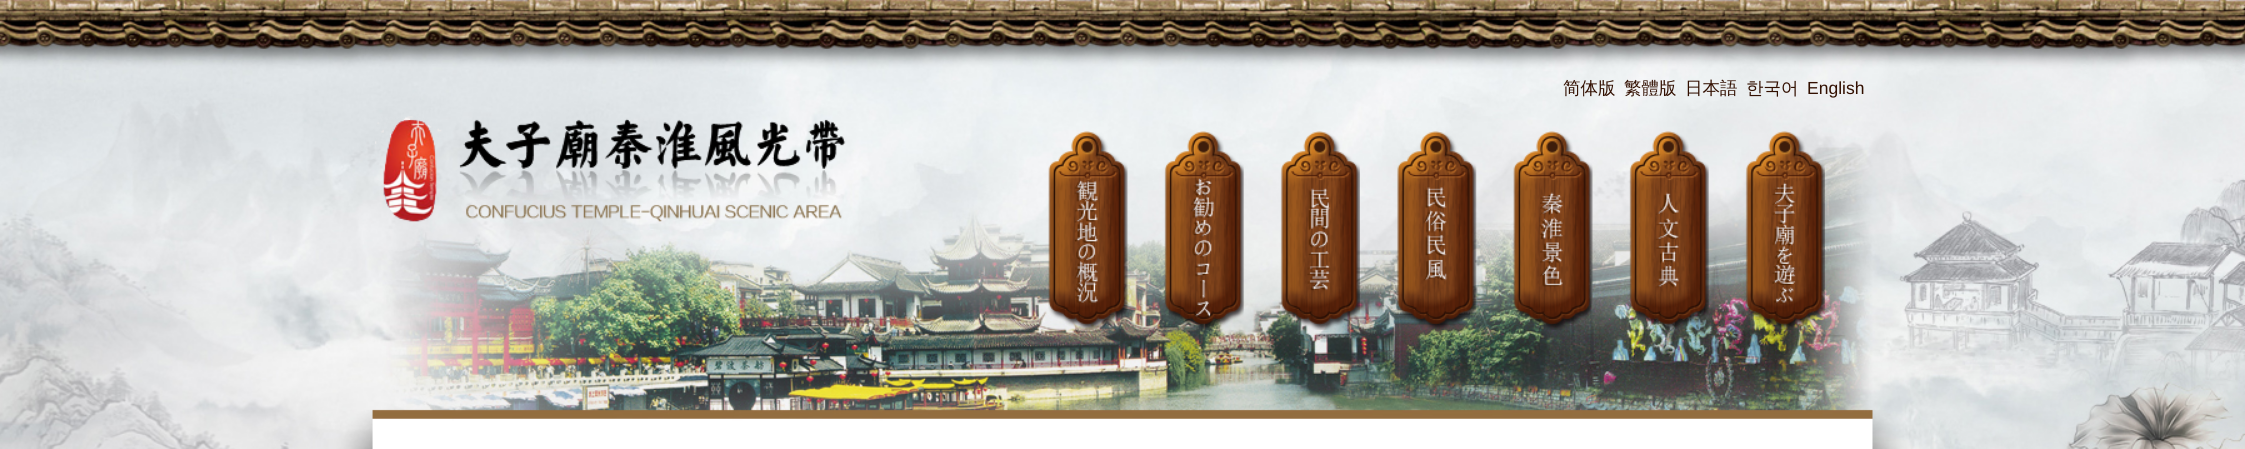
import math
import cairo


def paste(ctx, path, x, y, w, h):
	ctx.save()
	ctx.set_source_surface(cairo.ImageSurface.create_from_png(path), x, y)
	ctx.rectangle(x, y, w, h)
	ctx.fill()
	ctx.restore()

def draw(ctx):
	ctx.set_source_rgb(1, 1, 1)
	ctx.paint()
	paste(ctx, 'media/1.png', 0, 0, 2245, 449)
	ctx.select_font_face('WenQuanYi Zen Hei Medium')
	ctx.set_font_size(17.5)
	ctx.set_source_rgb(0.196, 0.059, 0)
	for x, y, s in [
		(1563, 94, '简体版'),
		(1624, 94, '繁體版'),
		(1685, 94, '日本語'),
		(1746, 94, '한국어'),
	]:
		ctx.move_to(x, y)
		ctx.show_text(s)
	ctx.select_font_face('Liberation Sans')
	ctx.move_to(1807, 94)
	ctx.show_text('English')
	paste(ctx, 'media/2.png', 375, 116, 471, 106)
	paste(ctx, 'media/3.png', 1048, 131, 80, 199)
	paste(ctx, 'media/4.png', 1164, 131, 80, 199)
	paste(ctx, 'media/5.png', 1280, 131, 80, 199)
	paste(ctx, 'media/6.png', 1397, 131, 80, 199)
	paste(ctx, 'media/7.png', 1513, 131, 80, 199)
	paste(ctx, 'media/8.png', 1629, 131, 80, 199)
	paste(ctx, 'media/9.png', 1745, 131, 80, 199)


surface = cairo.ImageSurface(cairo.FORMAT_RGB24, 2245, 449)
ctx = cairo.Context(surface)
options = cairo.FontOptions()
options.set_hint_metrics(cairo.HINT_METRICS_OFF)
options.set_hint_style(cairo.HINT_STYLE_NONE)
ctx.set_font_options(options)
ctx.set_miter_limit(4)
draw(ctx)
surface.write_to_png('image.png')
